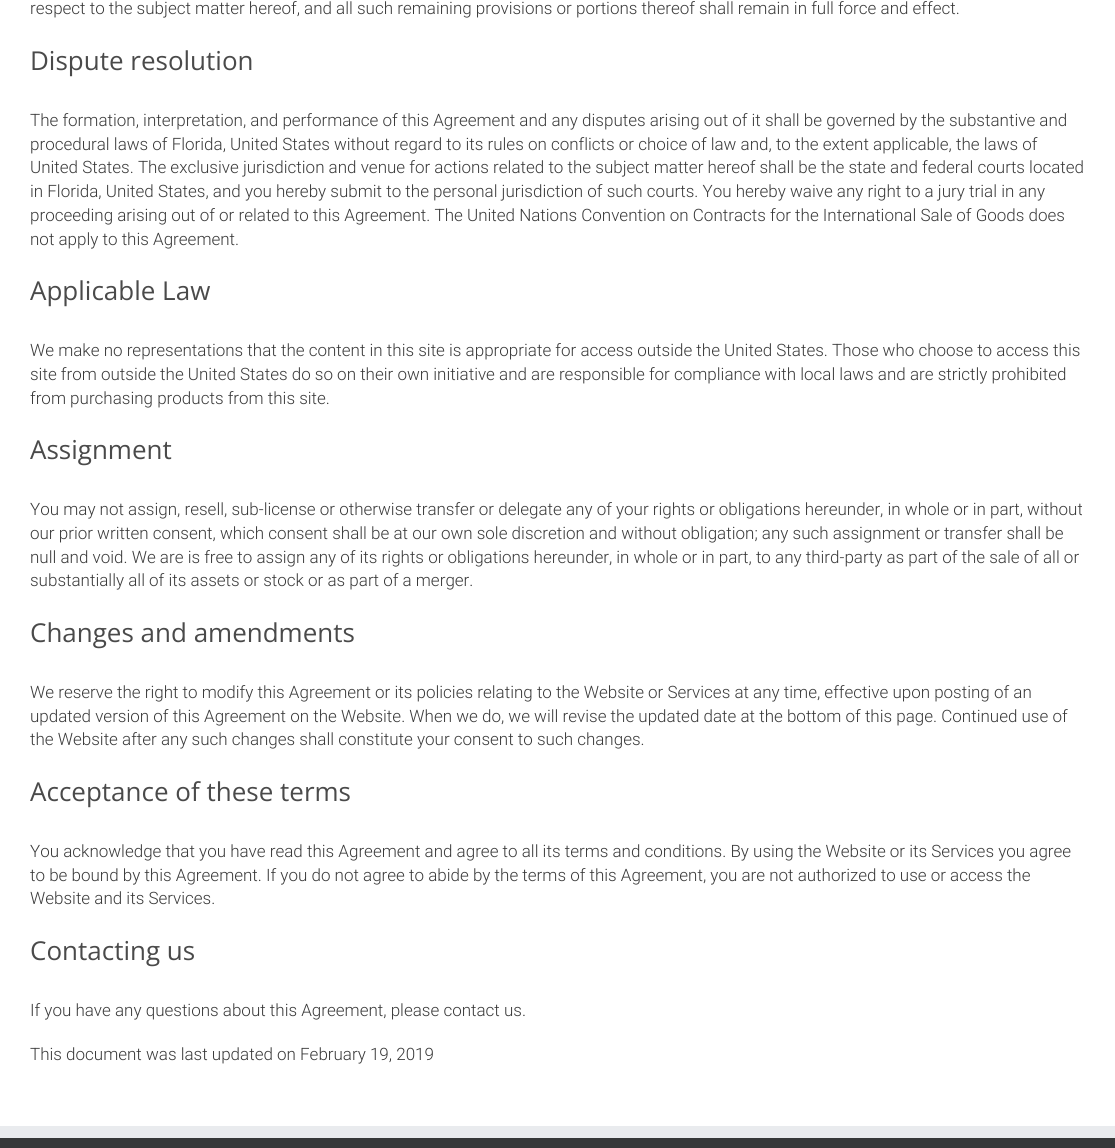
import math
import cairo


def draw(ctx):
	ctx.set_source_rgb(1, 1, 1)
	ctx.paint()
	ctx.select_font_face('Roboto Light')
	ctx.set_font_size(17)
	ctx.set_source_rgb(0.227, 0.227, 0.227)
	ctx.move_to(30, 14)
	ctx.show_text('respect to the subject matter hereof, and all such remaining provisions or portions thereof shall remain in full force and effect.')
	ctx.select_font_face('Open Sans')
	ctx.set_font_size(26)
	ctx.set_source_rgb(0.29, 0.29, 0.29)
	ctx.move_to(30, 70)
	ctx.show_text('Dispute resolution')
	ctx.select_font_face('Roboto Light')
	ctx.set_font_size(17)
	ctx.set_source_rgb(0.227, 0.227, 0.227)
	for x, y, s in [
		(30, 126, 'The formation, interpretation, and performance of this Agreement and any disputes arising out of it shall be governed by the substantive and'),
		(30, 150, 'procedural laws of Florida, United States without regard to its rules on conflicts or choice of law and, to the extent applicable, the laws of'),
		(30, 173, 'United States. The exclusive jurisdiction and venue for actions related to the subject matter hereof shall be the state and federal courts located'),
		(30, 197, 'in Florida, United States, and you hereby submit to the personal jurisdiction of such courts. You hereby waive any right to a jury trial in any'),
		(30, 221, 'proceeding arising out of or related to this Agreement. The United Nations Convention on Contracts for the International Sale of Goods does'),
		(30, 245, 'not apply to this Agreement.'),
	]:
		ctx.move_to(x, y)
		ctx.show_text(s)
	ctx.select_font_face('Open Sans')
	ctx.set_font_size(26)
	ctx.set_source_rgb(0.29, 0.29, 0.29)
	ctx.move_to(30, 300)
	ctx.show_text('Applicable Law')
	ctx.select_font_face('Roboto Light')
	ctx.set_font_size(17)
	ctx.set_source_rgb(0.227, 0.227, 0.227)
	for x, y, s in [
		(30, 356, 'We make no representations that the content in this site is appropriate for access outside the United States. Those who choose to access this'),
		(30, 380, 'site from outside the United States do so on their own initiative and are responsible for compliance with local laws and are strictly prohibited'),
		(30, 404, 'from purchasing products from this site.'),
	]:
		ctx.move_to(x, y)
		ctx.show_text(s)
	ctx.select_font_face('Open Sans')
	ctx.set_font_size(26)
	ctx.set_source_rgb(0.29, 0.29, 0.29)
	ctx.move_to(30, 459)
	ctx.show_text('Assignment')
	ctx.select_font_face('Roboto Light')
	ctx.set_font_size(17)
	ctx.set_source_rgb(0.227, 0.227, 0.227)
	for x, y, s in [
		(30, 515, 'You may not assign, resell, sub-license or otherwise transfer or delegate any of your rights or obligations hereunder, in whole or in part, without'),
		(30, 539, 'our prior written consent, which consent shall be at our own sole discretion and without obligation; any such assignment or transfer shall be'),
		(30, 563, 'null and void. We are is free to assign any of its rights or obligations hereunder, in whole or in part, to any third-party as part of the sale of all or'),
		(30, 586, 'substantially all of its assets or stock or as part of a merger.'),
	]:
		ctx.move_to(x, y)
		ctx.show_text(s)
	ctx.select_font_face('Open Sans')
	ctx.set_font_size(26)
	ctx.set_source_rgb(0.29, 0.29, 0.29)
	ctx.move_to(30, 642)
	ctx.show_text('Changes and amendments')
	ctx.select_font_face('Roboto Light')
	ctx.set_font_size(17)
	ctx.set_source_rgb(0.227, 0.227, 0.227)
	for x, y, s in [
		(30, 698, 'We reserve the right to modify this Agreement or its policies relating to the Website or Services at any time, effective upon posting of an'),
		(30, 722, 'updated version of this Agreement on the Website. When we do, we will revise the updated date at the bottom of this page. Continued use of'),
		(30, 745, 'the Website after any such changes shall constitute your consent to such changes.'),
	]:
		ctx.move_to(x, y)
		ctx.show_text(s)
	ctx.select_font_face('Open Sans')
	ctx.set_font_size(26)
	ctx.set_source_rgb(0.29, 0.29, 0.29)
	ctx.move_to(30, 801)
	ctx.show_text('Acceptance of these terms')
	ctx.select_font_face('Roboto Light')
	ctx.set_font_size(17)
	ctx.set_source_rgb(0.227, 0.227, 0.227)
	for x, y, s in [
		(30, 857, 'You acknowledge that you have read this Agreement and agree to all its terms and conditions. By using the Website or its Services you agree'),
		(30, 881, 'to be bound by this Agreement. If you do not agree to abide by the terms of this Agreement, you are not authorized to use or access the'),
		(30, 904, 'Website and its Services.'),
	]:
		ctx.move_to(x, y)
		ctx.show_text(s)
	ctx.select_font_face('Open Sans')
	ctx.set_font_size(26)
	ctx.set_source_rgb(0.29, 0.29, 0.29)
	ctx.move_to(30, 960)
	ctx.show_text('Contacting us')
	ctx.select_font_face('Roboto Light')
	ctx.set_font_size(17)
	ctx.set_source_rgb(0.227, 0.227, 0.227)
	ctx.move_to(30, 1016)
	ctx.show_text('If you have any questions about this Agreement, please contact us.')
	ctx.move_to(30, 1060)
	ctx.show_text('This document was last updated on February 19, 2019')
	ctx.set_source_rgb(0.212, 0.22, 0.224)
	ctx.rectangle(0, 1138, 1115, 10)
	ctx.fill()
	ctx.set_source_rgb(0.914, 0.918, 0.933)
	ctx.rectangle(0, 1126, 1115, 12)
	ctx.fill()


surface = cairo.ImageSurface(cairo.FORMAT_RGB24, 1115, 1148)
ctx = cairo.Context(surface)
options = cairo.FontOptions()
options.set_hint_metrics(cairo.HINT_METRICS_OFF)
options.set_hint_style(cairo.HINT_STYLE_NONE)
ctx.set_font_options(options)
ctx.set_miter_limit(4)
draw(ctx)
surface.write_to_png('image.png')
